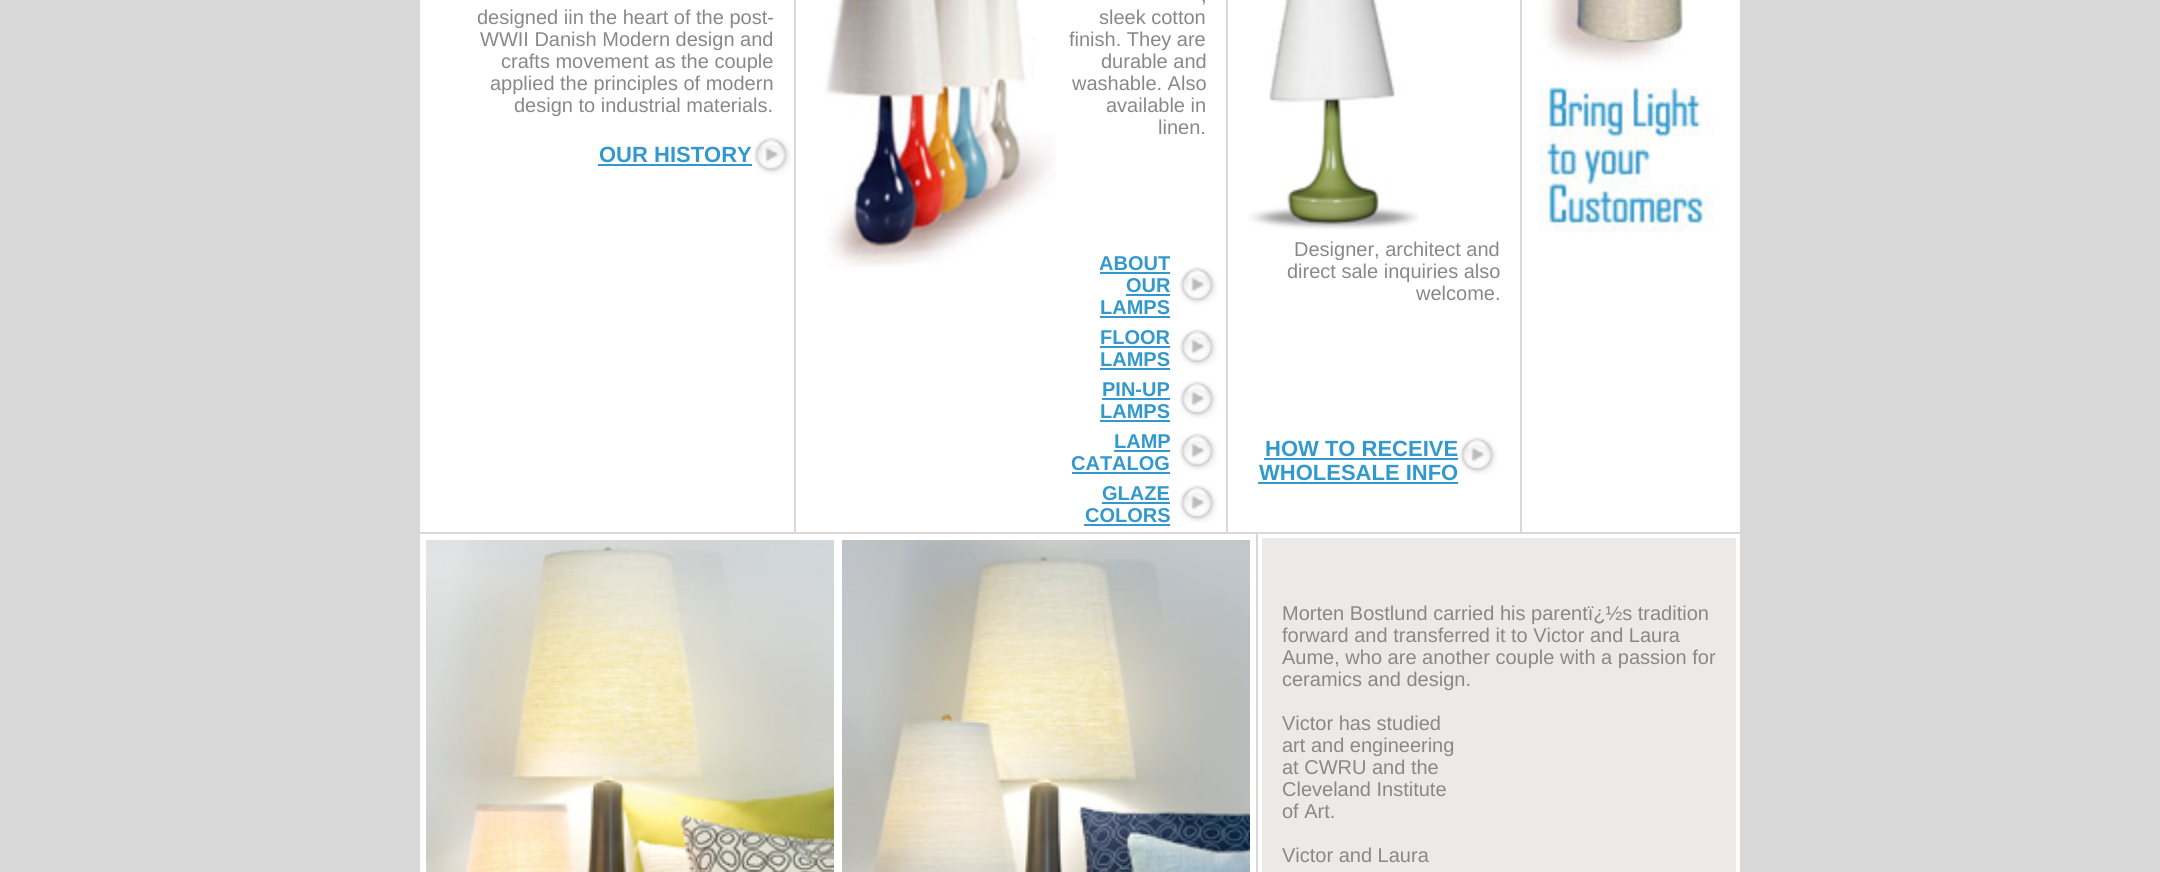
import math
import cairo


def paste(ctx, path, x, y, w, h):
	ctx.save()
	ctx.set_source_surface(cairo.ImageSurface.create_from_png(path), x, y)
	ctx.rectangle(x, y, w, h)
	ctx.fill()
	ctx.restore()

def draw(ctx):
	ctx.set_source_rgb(0.847, 0.847, 0.847)
	ctx.paint()
	ctx.set_source_rgb(1, 1, 1)
	ctx.rectangle(420, 0, 1320, 532)
	ctx.fill()
	ctx.set_source_rgb(0.847, 0.847, 0.847)
	ctx.new_path()
	ctx.move_to(796, -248)
	ctx.line_to(796, 532)
	ctx.line_to(794, 532)
	ctx.line_to(794, -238)
	ctx.close_path()
	ctx.fill()
	ctx.select_font_face('Liberation Sans')
	ctx.set_font_size(20)
	ctx.set_source_rgb(0.533, 0.533, 0.533)
	for x, y, s in [
		(477, 24, 'designed iin the heart of the post-'),
		(480, 46, 'WWII Danish Modern design and'),
		(501, 68, 'crafts movement as the couple'),
		(490, 90, 'applied the principles of modern'),
		(514, 112, 'design to industrial materials.'),
	]:
		ctx.move_to(x, y)
		ctx.show_text(s)
	ctx.select_font_face('Liberation Sans', cairo.FONT_SLANT_NORMAL, cairo.FONT_WEIGHT_BOLD)
	ctx.set_font_size(22)
	ctx.set_source_rgb(0.2, 0.6, 0.8)
	ctx.move_to(599, 162)
	ctx.show_text('OUR HISTORY')
	ctx.rectangle(598, 164, 154, 2)
	ctx.fill()
	paste(ctx, 'media/1.png', 753, 137, 38, 38)
	ctx.set_source_rgb(0.847, 0.847, 0.847)
	ctx.new_path()
	ctx.move_to(1228, -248)
	ctx.line_to(1228, 532)
	ctx.line_to(1226, 532)
	ctx.line_to(1226, -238)
	ctx.close_path()
	ctx.fill()
	paste(ctx, 'media/2.png', 825, 0, 231, 269)
	ctx.select_font_face('Liberation Sans')
	ctx.set_font_size(20)
	ctx.set_source_rgb(0.533, 0.533, 0.533)
	for x, y, s in [
		(1201, 2, ','),
		(1099, 24, 'sleek cotton'),
		(1069, 46, 'finish. They are'),
		(1101, 68, 'durable and'),
		(1072, 90, 'washable. Also'),
		(1106, 112, 'available in'),
		(1158, 134, 'linen.'),
	]:
		ctx.move_to(x, y)
		ctx.show_text(s)
	ctx.select_font_face('Liberation Sans', cairo.FONT_SLANT_NORMAL, cairo.FONT_WEIGHT_BOLD)
	ctx.set_source_rgb(0.2, 0.6, 0.8)
	ctx.move_to(1099, 270)
	ctx.show_text('ABOUT')
	ctx.rectangle(1100, 272, 70, 2)
	ctx.fill()
	ctx.move_to(1126, 292)
	ctx.show_text('OUR')
	ctx.rectangle(1126, 294, 44, 2)
	ctx.fill()
	ctx.move_to(1100, 314)
	ctx.show_text('LAMPS')
	ctx.rectangle(1100, 316, 70, 2)
	ctx.fill()
	paste(ctx, 'media/1.png', 1179, 267, 38, 38)
	ctx.move_to(1100, 344)
	ctx.show_text('FLOOR')
	ctx.rectangle(1100, 346, 70, 2)
	ctx.fill()
	ctx.move_to(1100, 366)
	ctx.show_text('LAMPS')
	ctx.rectangle(1100, 368, 70, 2)
	ctx.fill()
	paste(ctx, 'media/1.png', 1179, 329, 38, 38)
	ctx.move_to(1102, 396)
	ctx.show_text('PIN-UP')
	ctx.rectangle(1102, 398, 68, 2)
	ctx.fill()
	ctx.move_to(1100, 418)
	ctx.show_text('LAMPS')
	ctx.rectangle(1100, 420, 70, 2)
	ctx.fill()
	paste(ctx, 'media/1.png', 1179, 381, 38, 38)
	ctx.move_to(1114, 448)
	ctx.show_text('LAMP')
	ctx.rectangle(1114, 450, 56, 2)
	ctx.fill()
	ctx.move_to(1071, 470)
	ctx.show_text('CATALOG')
	ctx.rectangle(1072, 472, 98, 2)
	ctx.fill()
	paste(ctx, 'media/1.png', 1179, 433, 38, 38)
	ctx.move_to(1102, 500)
	ctx.show_text('GLAZE')
	ctx.rectangle(1102, 502, 68, 2)
	ctx.fill()
	ctx.move_to(1085, 522)
	ctx.show_text('COLORS')
	ctx.rectangle(1084, 524, 86, 2)
	ctx.fill()
	paste(ctx, 'media/1.png', 1179, 485, 38, 38)
	paste(ctx, 'media/3.png', 1538, 0, 176, 233)
	ctx.set_source_rgb(0.847, 0.847, 0.847)
	ctx.new_path()
	ctx.move_to(1522, -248)
	ctx.line_to(1522, 532)
	ctx.line_to(1520, 532)
	ctx.line_to(1520, -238)
	ctx.close_path()
	ctx.fill()
	paste(ctx, 'media/4.png', 1248, 0, 170, 230)
	ctx.select_font_face('Liberation Sans')
	ctx.set_source_rgb(0.533, 0.533, 0.533)
	for x, y, s in [
		(1294, 256, 'Designer, architect and'),
		(1287, 278, 'direct sale inquiries also'),
		(1416, 300, 'welcome.'),
	]:
		ctx.move_to(x, y)
		ctx.show_text(s)
	ctx.select_font_face('Liberation Sans', cairo.FONT_SLANT_NORMAL, cairo.FONT_WEIGHT_BOLD)
	ctx.set_font_size(22)
	ctx.set_source_rgb(0.2, 0.6, 0.8)
	ctx.move_to(1265, 456)
	ctx.show_text('HOW TO RECEIVE')
	ctx.rectangle(1264, 458, 194, 2)
	ctx.fill()
	ctx.move_to(1259, 480)
	ctx.show_text('WHOLESALE INFO')
	ctx.rectangle(1258, 482, 200, 2)
	ctx.fill()
	paste(ctx, 'media/1.png', 1459, 437, 38, 38)
	ctx.set_source_rgb(1, 1, 1)
	ctx.rectangle(420, 534, 1320, 338)
	ctx.fill()
	paste(ctx, 'media/5.png', 426, 540, 408, 332)
	paste(ctx, 'media/6.png', 842, 540, 408, 332)
	ctx.set_source_rgb(0.847, 0.847, 0.847)
	ctx.rectangle(1256, 534, 2, 338)
	ctx.fill()
	ctx.set_source_rgb(0.929, 0.914, 0.902)
	ctx.rectangle(1262, 538, 474, 334)
	ctx.fill()
	ctx.select_font_face('Liberation Sans')
	ctx.set_font_size(20)
	ctx.set_source_rgb(0.533, 0.533, 0.533)
	for x, y, s in [
		(1282, 620, 'Morten Bostlund carried his parentï¿½s tradition'),
		(1282, 642, 'forward and transferred it to Victor and Laura'),
		(1282, 664, 'Aume, who are another couple with a passion for'),
		(1282, 686, 'ceramics and design.'),
		(1282, 730, 'Victor has studied'),
		(1282, 752, 'art and engineering'),
		(1282, 774, 'at CWRU and the'),
		(1282, 796, 'Cleveland Institute'),
		(1282, 818, 'of Art.'),
		(1282, 862, 'Victor and Laura'),
	]:
		ctx.move_to(x, y)
		ctx.show_text(s)


surface = cairo.ImageSurface(cairo.FORMAT_RGB24, 2160, 872)
ctx = cairo.Context(surface)
options = cairo.FontOptions()
options.set_hint_metrics(cairo.HINT_METRICS_OFF)
options.set_hint_style(cairo.HINT_STYLE_NONE)
ctx.set_font_options(options)
ctx.set_miter_limit(4)
draw(ctx)
surface.write_to_png('image.png')
